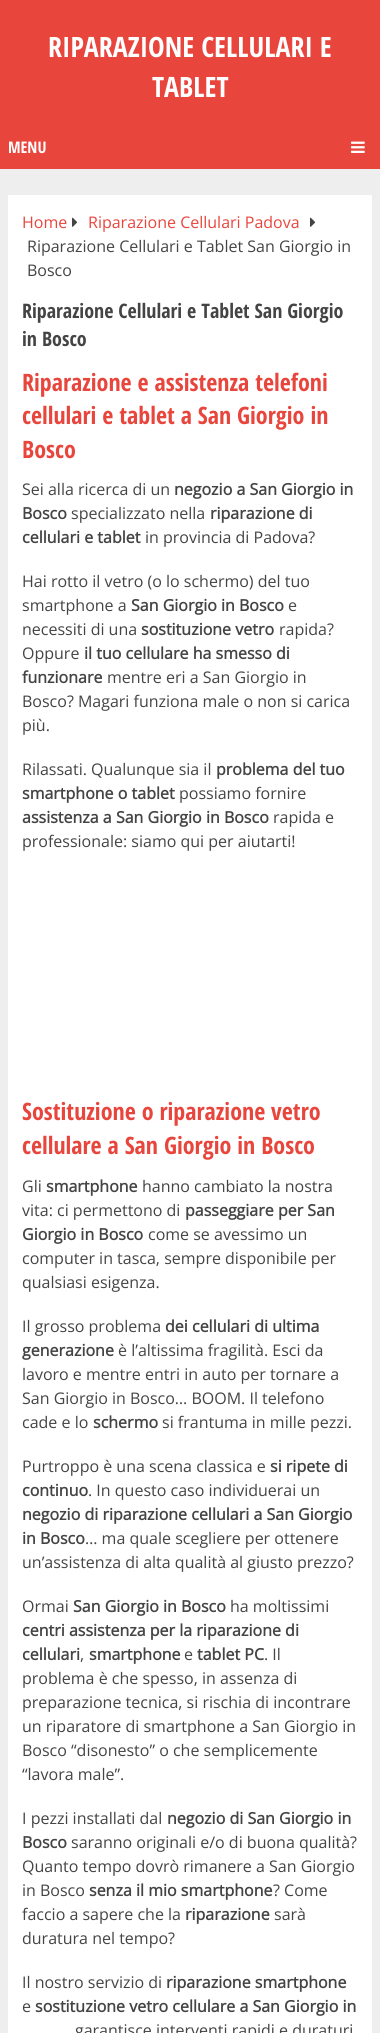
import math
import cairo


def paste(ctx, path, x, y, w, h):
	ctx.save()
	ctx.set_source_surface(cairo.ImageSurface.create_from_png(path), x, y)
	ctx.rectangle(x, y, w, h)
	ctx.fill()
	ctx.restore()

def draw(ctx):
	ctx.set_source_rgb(0.933, 0.933, 0.933)
	ctx.paint()
	ctx.set_source_rgb(0.91, 0.271, 0.235)
	ctx.rectangle(0, 0, 380, 169)
	ctx.fill()
	ctx.select_font_face('Open Sans Condensed', cairo.FONT_SLANT_NORMAL, cairo.FONT_WEIGHT_BOLD)
	ctx.set_font_size(28)
	ctx.set_source_rgb(1, 1, 1)
	ctx.move_to(48, 57)
	ctx.show_text('RIPARAZIONE CELLULARI E')
	ctx.move_to(152, 97)
	ctx.show_text('TABLET')
	ctx.set_font_size(16)
	ctx.move_to(8, 153)
	ctx.show_text('MENU')
	paste(ctx, 'media/1.png', 351, 141, 14, 12)
	ctx.rectangle(8, 195, 364, 1838)
	ctx.fill()
	ctx.select_font_face('Open Sans')
	ctx.set_source_rgb(0.91, 0.271, 0.235)
	ctx.move_to(22, 228)
	ctx.show_text('Home')
	paste(ctx, 'media/2.png', 72, 217, 6, 10)
	ctx.move_to(88, 228)
	ctx.show_text('Riparazione Cellulari Padova')
	paste(ctx, 'media/2.png', 310, 217, 6, 10)
	ctx.set_source_rgb(0.267, 0.267, 0.267)
	ctx.move_to(27, 252)
	ctx.show_text('Riparazione Cellulari e Tablet San Giorgio in')
	ctx.move_to(27, 276)
	ctx.show_text('Bosco')
	ctx.select_font_face('Open Sans Condensed', cairo.FONT_SLANT_NORMAL, cairo.FONT_WEIGHT_BOLD)
	ctx.set_font_size(20)
	ctx.move_to(22, 318)
	ctx.show_text('Riparazione Cellulari e Tablet San Giorgio')
	ctx.move_to(22, 346)
	ctx.show_text('in Bosco')
	ctx.set_font_size(24)
	ctx.set_source_rgb(0.91, 0.271, 0.235)
	for x, y, s in [
		(22, 391, 'Riparazione e assistenza telefoni'),
		(22, 424, 'cellulari e tablet a San Giorgio in'),
		(22, 458, 'Bosco'),
	]:
		ctx.move_to(x, y)
		ctx.show_text(s)
	ctx.select_font_face('Open Sans')
	ctx.set_font_size(16)
	ctx.set_source_rgb(0.267, 0.267, 0.267)
	ctx.move_to(22, 495)
	ctx.show_text('Sei alla ricerca di un')
	ctx.select_font_face('Open Sans', cairo.FONT_SLANT_NORMAL, cairo.FONT_WEIGHT_BOLD)
	ctx.move_to(174, 495)
	ctx.show_text('negozio a San Giorgio in')
	ctx.move_to(22, 519)
	ctx.show_text('Bosco')
	ctx.select_font_face('Open Sans')
	ctx.move_to(71, 519)
	ctx.show_text('specializzato nella')
	ctx.select_font_face('Open Sans', cairo.FONT_SLANT_NORMAL, cairo.FONT_WEIGHT_BOLD)
	ctx.move_to(210, 519)
	ctx.show_text('riparazione di')
	ctx.move_to(22, 543)
	ctx.show_text('cellulari e tablet')
	ctx.select_font_face('Open Sans')
	for x, y, s in [
		(145, 543, 'in provincia di Padova?'),
		(22, 587, 'Hai rotto il vetro (o lo schermo) del tuo'),
		(22, 611, 'smartphone a'),
	]:
		ctx.move_to(x, y)
		ctx.show_text(s)
	ctx.select_font_face('Open Sans', cairo.FONT_SLANT_NORMAL, cairo.FONT_WEIGHT_BOLD)
	ctx.move_to(131, 611)
	ctx.show_text('San Giorgio in Bosco')
	ctx.select_font_face('Open Sans')
	ctx.move_to(288, 611)
	ctx.show_text('e')
	ctx.move_to(22, 635)
	ctx.show_text('necessiti di una')
	ctx.select_font_face('Open Sans', cairo.FONT_SLANT_NORMAL, cairo.FONT_WEIGHT_BOLD)
	ctx.move_to(141, 635)
	ctx.show_text('sostituzione vetro')
	ctx.select_font_face('Open Sans')
	ctx.move_to(279, 635)
	ctx.show_text('rapida?')
	ctx.move_to(22, 659)
	ctx.show_text('Oppure')
	ctx.select_font_face('Open Sans', cairo.FONT_SLANT_NORMAL, cairo.FONT_WEIGHT_BOLD)
	ctx.move_to(84, 659)
	ctx.show_text('il tuo cellulare ha smesso di')
	ctx.move_to(22, 683)
	ctx.show_text('funzionare')
	ctx.select_font_face('Open Sans')
	for x, y, s in [
		(107, 683, 'mentre eri a San Giorgio in'),
		(22, 707, 'Bosco? Magari funziona male o non si carica'),
		(22, 731, 'più.'),
		(22, 775, 'Rilassati. Qualunque sia il'),
	]:
		ctx.move_to(x, y)
		ctx.show_text(s)
	ctx.select_font_face('Open Sans', cairo.FONT_SLANT_NORMAL, cairo.FONT_WEIGHT_BOLD)
	ctx.move_to(216, 775)
	ctx.show_text('problema del tuo')
	ctx.move_to(22, 799)
	ctx.show_text('smartphone o tablet')
	ctx.select_font_face('Open Sans')
	ctx.move_to(179, 799)
	ctx.show_text('possiamo fornire')
	ctx.select_font_face('Open Sans', cairo.FONT_SLANT_NORMAL, cairo.FONT_WEIGHT_BOLD)
	ctx.move_to(22, 823)
	ctx.show_text('assistenza a San Giorgio in Bosco')
	ctx.select_font_face('Open Sans')
	ctx.move_to(273, 823)
	ctx.show_text('rapida e')
	ctx.move_to(22, 847)
	ctx.show_text('professionale: siamo qui per aiutarti!')
	ctx.select_font_face('Open Sans Condensed', cairo.FONT_SLANT_NORMAL, cairo.FONT_WEIGHT_BOLD)
	ctx.set_font_size(24)
	ctx.set_source_rgb(0.91, 0.271, 0.235)
	ctx.move_to(22, 1120)
	ctx.show_text('Sostituzione o riparazione vetro')
	ctx.move_to(22, 1154)
	ctx.show_text('cellulare a San Giorgio in Bosco')
	ctx.select_font_face('Open Sans')
	ctx.set_font_size(16)
	ctx.set_source_rgb(0.267, 0.267, 0.267)
	ctx.move_to(22, 1192)
	ctx.show_text('Gli')
	ctx.select_font_face('Open Sans', cairo.FONT_SLANT_NORMAL, cairo.FONT_WEIGHT_BOLD)
	ctx.move_to(46, 1192)
	ctx.show_text('smartphone')
	ctx.select_font_face('Open Sans')
	ctx.move_to(142, 1192)
	ctx.show_text('hanno cambiato la nostra')
	ctx.move_to(22, 1216)
	ctx.show_text('vita: ci permettono di')
	ctx.select_font_face('Open Sans', cairo.FONT_SLANT_NORMAL, cairo.FONT_WEIGHT_BOLD)
	ctx.move_to(185, 1216)
	ctx.show_text('passeggiare per San')
	ctx.move_to(22, 1240)
	ctx.show_text('Giorgio in Bosco')
	ctx.select_font_face('Open Sans')
	for x, y, s in [
		(148, 1240, 'come se avessimo un'),
		(22, 1264, 'computer in tasca, sempre disponibile per'),
		(22, 1288, 'qualsiasi esigenza.'),
		(22, 1332, 'Il grosso problema'),
	]:
		ctx.move_to(x, y)
		ctx.show_text(s)
	ctx.select_font_face('Open Sans', cairo.FONT_SLANT_NORMAL, cairo.FONT_WEIGHT_BOLD)
	ctx.move_to(165, 1332)
	ctx.show_text('dei cellulari di ultima')
	ctx.move_to(22, 1356)
	ctx.show_text('generazione')
	ctx.select_font_face('Open Sans')
	for x, y, s in [
		(118, 1356, 'è l’altissima fragilità. Esci da'),
		(22, 1380, 'lavoro e mentre entri in auto per tornare a'),
		(22, 1404, 'San Giorgio in Bosco… BOOM. Il telefono'),
		(22, 1428, 'cade e lo'),
	]:
		ctx.move_to(x, y)
		ctx.show_text(s)
	ctx.select_font_face('Open Sans', cairo.FONT_SLANT_NORMAL, cairo.FONT_WEIGHT_BOLD)
	ctx.move_to(93, 1428)
	ctx.show_text('schermo')
	ctx.select_font_face('Open Sans')
	ctx.move_to(162, 1428)
	ctx.show_text('si frantuma in mille pezzi.')
	ctx.move_to(22, 1472)
	ctx.show_text('Purtroppo è una scena classica e')
	ctx.select_font_face('Open Sans', cairo.FONT_SLANT_NORMAL, cairo.FONT_WEIGHT_BOLD)
	ctx.move_to(270, 1472)
	ctx.show_text('si ripete di')
	ctx.move_to(22, 1496)
	ctx.show_text('continuo')
	ctx.select_font_face('Open Sans')
	ctx.move_to(88, 1496)
	ctx.show_text('. In questo caso individuerai un')
	ctx.select_font_face('Open Sans', cairo.FONT_SLANT_NORMAL, cairo.FONT_WEIGHT_BOLD)
	ctx.move_to(22, 1520)
	ctx.show_text('negozio di riparazione cellulari a San Giorgio')
	ctx.move_to(22, 1544)
	ctx.show_text('in Bosco')
	ctx.select_font_face('Open Sans')
	for x, y, s in [
		(85, 1544, '… ma quale scegliere per ottenere'),
		(22, 1568, 'un’assistenza di alta qualità al giusto prezzo?'),
		(22, 1612, 'Ormai'),
	]:
		ctx.move_to(x, y)
		ctx.show_text(s)
	ctx.select_font_face('Open Sans', cairo.FONT_SLANT_NORMAL, cairo.FONT_WEIGHT_BOLD)
	ctx.move_to(73, 1612)
	ctx.show_text('San Giorgio in Bosco')
	ctx.select_font_face('Open Sans')
	ctx.move_to(230, 1612)
	ctx.show_text('ha moltissimi')
	ctx.select_font_face('Open Sans', cairo.FONT_SLANT_NORMAL, cairo.FONT_WEIGHT_BOLD)
	ctx.move_to(22, 1636)
	ctx.show_text('centri assistenza per la riparazione di')
	ctx.move_to(22, 1660)
	ctx.show_text('cellulari')
	ctx.select_font_face('Open Sans')
	ctx.move_to(80, 1660)
	ctx.show_text(',')
	ctx.select_font_face('Open Sans', cairo.FONT_SLANT_NORMAL, cairo.FONT_WEIGHT_BOLD)
	ctx.move_to(89, 1660)
	ctx.show_text('smartphone')
	ctx.select_font_face('Open Sans')
	ctx.move_to(184, 1660)
	ctx.show_text('e')
	ctx.select_font_face('Open Sans', cairo.FONT_SLANT_NORMAL, cairo.FONT_WEIGHT_BOLD)
	ctx.move_to(197, 1660)
	ctx.show_text('tablet PC')
	ctx.select_font_face('Open Sans')
	for x, y, s in [
		(264, 1660, '. Il'),
		(22, 1684, 'problema è che spesso, in assenza di'),
		(22, 1708, 'preparazione tecnica, si rischia di incontrare'),
		(22, 1732, 'un riparatore di smartphone a San Giorgio in'),
		(22, 1756, 'Bosco “disonesto” o che semplicemente'),
		(22, 1780, '“lavora male”.'),
		(22, 1824, 'I pezzi installati dal'),
	]:
		ctx.move_to(x, y)
		ctx.show_text(s)
	ctx.select_font_face('Open Sans', cairo.FONT_SLANT_NORMAL, cairo.FONT_WEIGHT_BOLD)
	ctx.move_to(167, 1824)
	ctx.show_text('negozio di San Giorgio in')
	ctx.move_to(22, 1848)
	ctx.show_text('Bosco')
	ctx.select_font_face('Open Sans')
	for x, y, s in [
		(71, 1848, 'saranno originali e/o di buona qualità?'),
		(22, 1872, 'Quanto tempo dovrò rimanere a San Giorgio'),
		(22, 1896, 'in Bosco'),
	]:
		ctx.move_to(x, y)
		ctx.show_text(s)
	ctx.select_font_face('Open Sans', cairo.FONT_SLANT_NORMAL, cairo.FONT_WEIGHT_BOLD)
	ctx.move_to(89, 1896)
	ctx.show_text('senza il mio smartphone')
	ctx.select_font_face('Open Sans')
	ctx.move_to(273, 1896)
	ctx.show_text('? Come')
	ctx.move_to(22, 1920)
	ctx.show_text('faccio a sapere che la')
	ctx.select_font_face('Open Sans', cairo.FONT_SLANT_NORMAL, cairo.FONT_WEIGHT_BOLD)
	ctx.move_to(185, 1920)
	ctx.show_text('riparazione')
	ctx.select_font_face('Open Sans')
	for x, y, s in [
		(274, 1920, 'sarà'),
		(22, 1944, 'duratura nel tempo?'),
		(22, 1988, 'Il nostro servizio di'),
	]:
		ctx.move_to(x, y)
		ctx.show_text(s)
	ctx.select_font_face('Open Sans', cairo.FONT_SLANT_NORMAL, cairo.FONT_WEIGHT_BOLD)
	ctx.move_to(166, 1988)
	ctx.show_text('riparazione smartphone')
	ctx.select_font_face('Open Sans')
	ctx.move_to(22, 2012)
	ctx.show_text('e')
	ctx.select_font_face('Open Sans', cairo.FONT_SLANT_NORMAL, cairo.FONT_WEIGHT_BOLD)
	ctx.move_to(35, 2012)
	ctx.show_text('sostituzione vetro cellulare a San Giorgio in')
	ctx.select_font_face('Open Sans')
	ctx.move_to(75, 2036)
	ctx.show_text('garantisce interventi rapidi e duraturi')


surface = cairo.ImageSurface(cairo.FORMAT_RGB24, 380, 2033)
ctx = cairo.Context(surface)
options = cairo.FontOptions()
options.set_hint_metrics(cairo.HINT_METRICS_OFF)
options.set_hint_style(cairo.HINT_STYLE_NONE)
ctx.set_font_options(options)
ctx.set_miter_limit(4)
draw(ctx)
surface.write_to_png('image.png')
